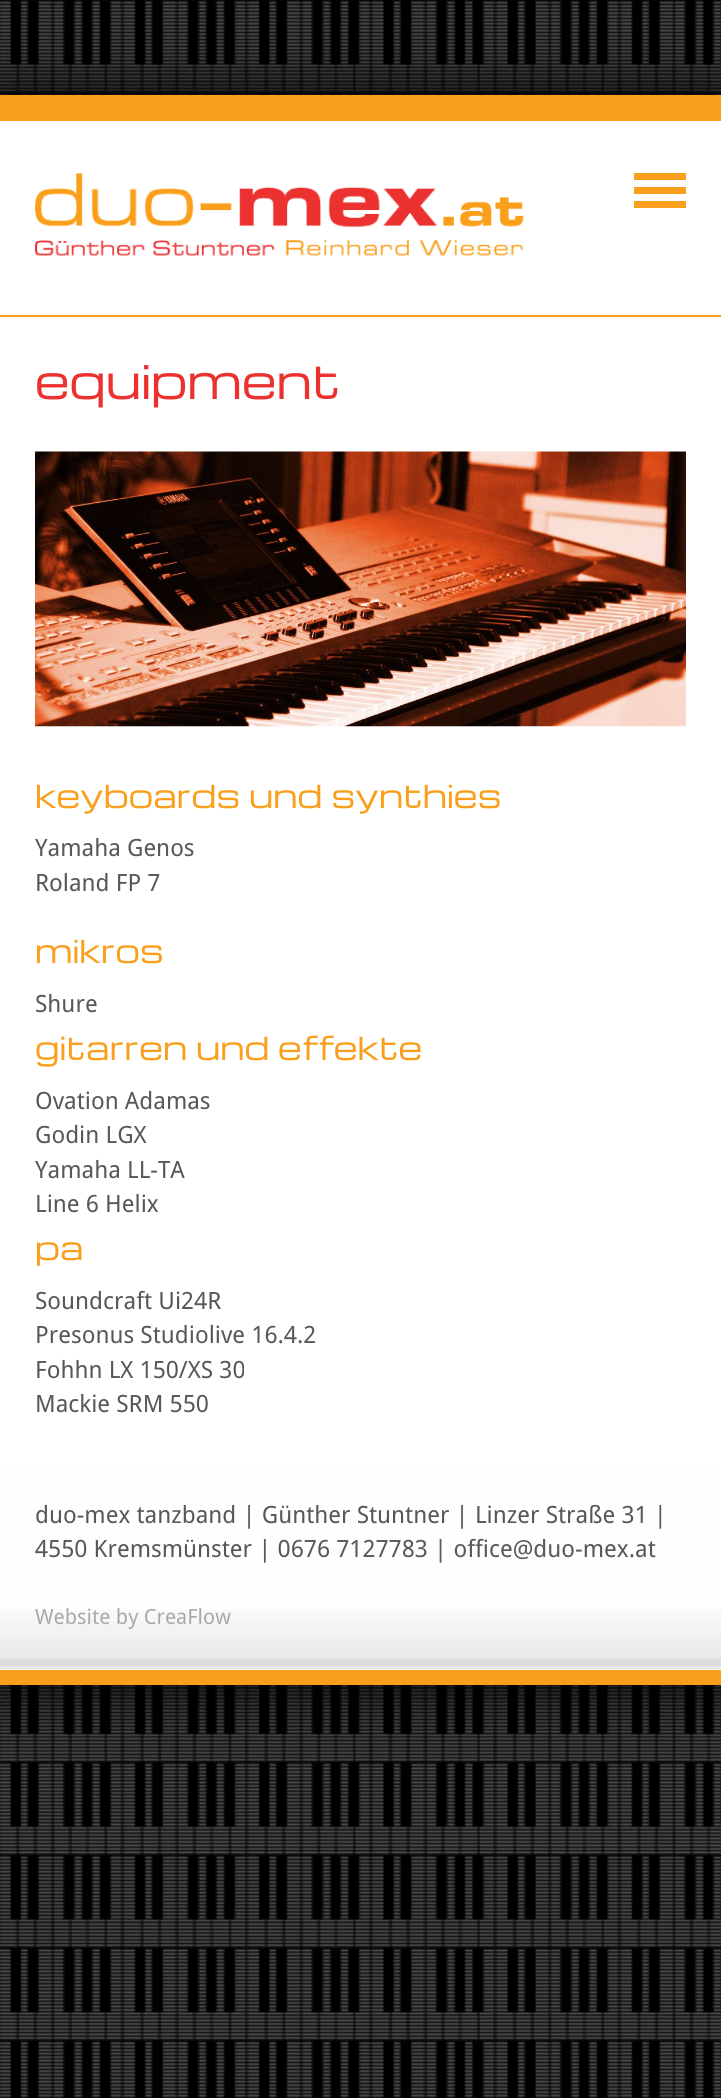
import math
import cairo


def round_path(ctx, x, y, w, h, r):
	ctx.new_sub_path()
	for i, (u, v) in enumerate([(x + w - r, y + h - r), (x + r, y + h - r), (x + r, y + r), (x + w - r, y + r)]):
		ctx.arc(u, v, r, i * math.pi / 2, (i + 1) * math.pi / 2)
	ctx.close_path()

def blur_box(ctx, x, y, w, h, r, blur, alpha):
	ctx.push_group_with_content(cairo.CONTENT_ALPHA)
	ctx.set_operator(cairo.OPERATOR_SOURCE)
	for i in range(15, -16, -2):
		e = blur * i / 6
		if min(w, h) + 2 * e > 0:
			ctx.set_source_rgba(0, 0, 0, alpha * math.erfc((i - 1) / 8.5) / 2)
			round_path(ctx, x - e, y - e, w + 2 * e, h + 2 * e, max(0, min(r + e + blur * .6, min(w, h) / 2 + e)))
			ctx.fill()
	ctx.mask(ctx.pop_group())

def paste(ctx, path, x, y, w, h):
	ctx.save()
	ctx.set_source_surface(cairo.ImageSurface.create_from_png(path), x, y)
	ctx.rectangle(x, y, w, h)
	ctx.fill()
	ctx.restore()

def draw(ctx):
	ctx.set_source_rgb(1, 1, 1)
	ctx.paint()
	paste(ctx, 'media/1.png', 0, 0, 721, 2098)
	ctx.set_source_rgb(0, 0, 0)
	blur_box(ctx, 0, 95, 721, 1590, 0, 30.5, 1)
	ctx.set_source_rgb(0.976, 0.624, 0.11)
	ctx.rectangle(0, 95, 721, 26)
	ctx.fill()
	ctx.set_source_rgb(1, 1, 1)
	ctx.rectangle(0, 121, 721, 194)
	ctx.fill()
	ctx.set_source_rgb(0.976, 0.624, 0.11)
	ctx.rectangle(0, 315, 721, 2)
	ctx.fill()
	paste(ctx, 'media/2.png', 35, 173, 489, 83)
	ctx.rectangle(634, 173, 52, 7)
	ctx.rectangle(634, 201, 52, 7)
	ctx.rectangle(634, 187, 52, 7)
	ctx.fill()
	ctx.set_source_rgb(1, 1, 1)
	ctx.rectangle(0, 317, 721, 1148)
	ctx.fill()
	ctx.select_font_face('Michroma')
	ctx.set_font_size(45.25)
	ctx.set_source_rgb(0.925, 0.196, 0.192)
	ctx.move_to(35, 399)
	ctx.show_text('equipment')
	paste(ctx, 'media/3.png', 35, 451, 651, 276)
	ctx.set_font_size(31)
	ctx.set_source_rgb(0.976, 0.624, 0.11)
	ctx.move_to(35, 808)
	ctx.show_text('keyboards und synthies')
	ctx.select_font_face('Droid Sans')
	ctx.set_font_size(23.8)
	ctx.set_source_rgb(0.345, 0.345, 0.345)
	ctx.move_to(35, 856)
	ctx.show_text('Yamaha Genos')
	ctx.move_to(35, 891)
	ctx.show_text('Roland FP 7')
	ctx.select_font_face('Michroma')
	ctx.set_font_size(31)
	ctx.set_source_rgb(0.976, 0.624, 0.11)
	ctx.move_to(35, 963)
	ctx.show_text('mikros')
	ctx.select_font_face('Droid Sans')
	ctx.set_font_size(23.8)
	ctx.set_source_rgb(0.345, 0.345, 0.345)
	ctx.move_to(35, 1012)
	ctx.show_text('Shure')
	ctx.select_font_face('Michroma')
	ctx.set_font_size(31)
	ctx.set_source_rgb(0.976, 0.624, 0.11)
	ctx.move_to(35, 1060)
	ctx.show_text('gitarren und effekte')
	ctx.select_font_face('Droid Sans')
	ctx.set_font_size(23.8)
	ctx.set_source_rgb(0.345, 0.345, 0.345)
	for x, y, s in [
		(35, 1109, 'Ovation Adamas'),
		(35, 1143, 'Godin LGX'),
		(35, 1178, 'Yamaha LL-TA'),
		(35, 1212, 'Line 6 Helix'),
	]:
		ctx.move_to(x, y)
		ctx.show_text(s)
	ctx.select_font_face('Michroma')
	ctx.set_font_size(31)
	ctx.set_source_rgb(0.976, 0.624, 0.11)
	ctx.move_to(35, 1260)
	ctx.show_text('pa')
	ctx.select_font_face('Droid Sans')
	ctx.set_font_size(23.8)
	ctx.set_source_rgb(0.345, 0.345, 0.345)
	for x, y, s in [
		(35, 1309, 'Soundcraft Ui24R'),
		(35, 1343, 'Presonus Studiolive 16.4.2'),
		(35, 1378, 'Fohhn LX 150/XS 30'),
		(35, 1412, 'Mackie SRM 550'),
	]:
		ctx.move_to(x, y)
		ctx.show_text(s)
	ctx.set_source_rgb(0.996, 0.996, 0.996)
	ctx.rectangle(0, 1465, 721, 205)
	ctx.fill()
	paste(ctx, 'media/4.png', 0, 1610, 721, 60)
	ctx.set_source_rgb(0.976, 0.624, 0.11)
	ctx.rectangle(0, 1670, 721, 15)
	ctx.fill()
	ctx.set_source_rgb(0.345, 0.345, 0.345)
	ctx.move_to(35, 1523)
	ctx.show_text('duo-mex tanzband | Günther Stuntner | Linzer Straße 31 |')
	ctx.move_to(35, 1557)
	ctx.show_text('4550 Kremsmünster | 0676 7127783 | office@duo-mex.at')
	ctx.set_font_size(21)
	ctx.set_source_rgb(0.663, 0.663, 0.663)
	ctx.move_to(35, 1624)
	ctx.show_text('Website by CreaFlow')


surface = cairo.ImageSurface(cairo.FORMAT_RGB24, 721, 2098)
ctx = cairo.Context(surface)
options = cairo.FontOptions()
options.set_hint_metrics(cairo.HINT_METRICS_OFF)
options.set_hint_style(cairo.HINT_STYLE_NONE)
ctx.set_font_options(options)
ctx.set_miter_limit(4)
draw(ctx)
surface.write_to_png('image.png')
